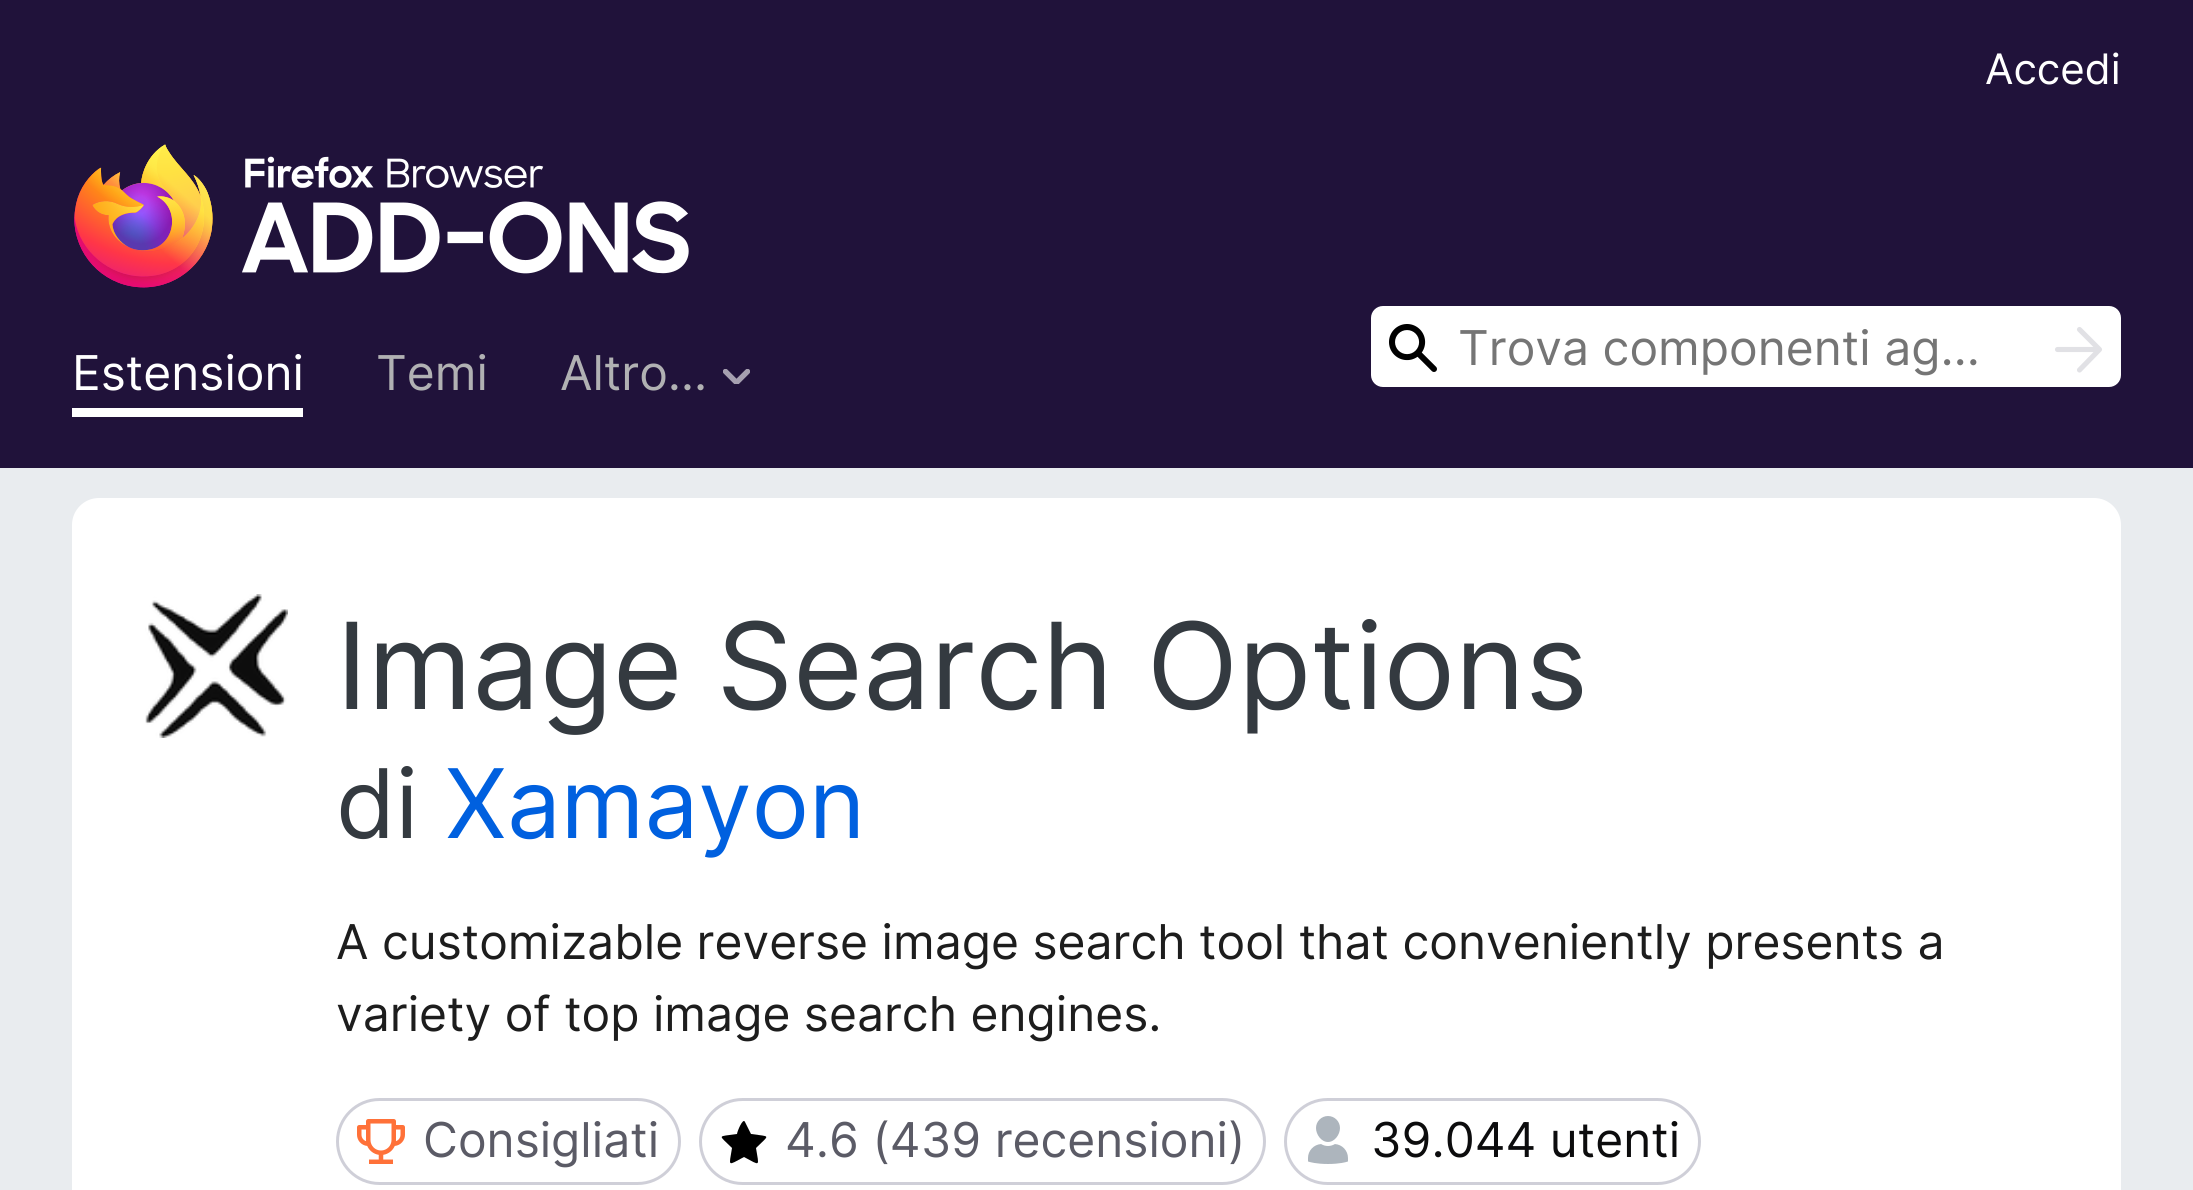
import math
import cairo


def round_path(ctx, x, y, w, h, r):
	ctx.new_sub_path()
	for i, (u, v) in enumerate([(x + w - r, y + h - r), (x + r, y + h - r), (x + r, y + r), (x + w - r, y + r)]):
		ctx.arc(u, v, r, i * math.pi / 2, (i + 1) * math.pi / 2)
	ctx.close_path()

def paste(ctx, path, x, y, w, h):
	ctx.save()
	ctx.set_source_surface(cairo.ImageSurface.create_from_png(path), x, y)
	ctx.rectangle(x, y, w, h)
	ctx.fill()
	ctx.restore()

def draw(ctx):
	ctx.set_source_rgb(0.125, 0.071, 0.227)
	ctx.paint()
	ctx.select_font_face('Inter')
	ctx.set_font_size(42)
	ctx.set_source_rgb(1, 1, 1)
	ctx.move_to(1985, 84)
	ctx.show_text('Accedi')
	paste(ctx, 'media/1.png', 74, 144, 615, 144)
	ctx.set_font_size(48)
	ctx.move_to(72, 390)
	ctx.show_text('Estensioni')
	ctx.rectangle(72, 408, 231, 9)
	ctx.fill()
	ctx.set_source_rgb(0.694, 0.694, 0.702)
	ctx.move_to(376, 390)
	ctx.show_text('Temi')
	ctx.move_to(560, 390)
	ctx.show_text('Altro…')
	ctx.save()
	ctx.rectangle(723, 369, 27, 15)
	ctx.clip()
	ctx.new_path()
	ctx.move_to(747.5, 371.5)
	ctx.line_to(736.5, 382.5)
	ctx.line_to(725.5, 371.5)
	ctx.set_source_rgb(0.651, 0.627, 0.69)
	ctx.set_line_width(5.4)
	ctx.set_line_cap(cairo.LINE_CAP_ROUND)
	ctx.set_line_join(cairo.LINE_JOIN_ROUND)
	ctx.stroke()
	ctx.restore()
	ctx.set_source_rgb(1, 1, 1)
	round_path(ctx, 1372.5, 307.5, 747, 78, 10.5)
	ctx.fill_preserve()
	ctx.set_line_width(3)
	ctx.stroke()
	paste(ctx, 'media/2.png', 1389, 324, 48, 48)
	ctx.set_source_rgb(0.459, 0.459, 0.459)
	ctx.move_to(1458, 365)
	ctx.show_text('Trova componenti ag…')
	ctx.new_path()
	ctx.move_to(2057.5, 349.5)
	ctx.line_to(2097, 349.5)
	ctx.move_to(2079.5, 329.5)
	ctx.line_to(2099.5, 349.5)
	ctx.line_to(2079.5, 370)
	ctx.set_source_rgb(0.882, 0.882, 0.898)
	ctx.set_line_width(5.1)
	ctx.set_line_cap(cairo.LINE_CAP_ROUND)
	ctx.set_line_join(cairo.LINE_JOIN_ROUND)
	ctx.stroke()
	ctx.set_source_rgb(0.914, 0.925, 0.937)
	ctx.rectangle(0, 468, 2193, 722)
	ctx.fill()
	ctx.set_source_rgb(1, 1, 1)
	round_path(ctx, 72, 498, 2049, 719, 27)
	ctx.fill()
	paste(ctx, 'media/3.png', 145, 594, 143, 144)
	ctx.set_font_size(120)
	ctx.set_source_rgb(0.204, 0.227, 0.251)
	ctx.move_to(336, 709)
	ctx.show_text('Image Search Options')
	ctx.set_font_size(96)
	ctx.move_to(336, 838)
	ctx.show_text('di')
	ctx.set_source_rgb(0, 0.376, 0.875)
	ctx.move_to(445, 838)
	ctx.show_text('Xamayon')
	ctx.set_font_size(48)
	ctx.set_source_rgb(0.114, 0.114, 0.114)
	ctx.move_to(336, 959)
	ctx.show_text('A customizable reverse image search tool that conveniently presents a')
	ctx.move_to(336, 1031)
	ctx.show_text('variety of top image search engines.')
	round_path(ctx, 337.5, 1099.5, 342, 84, 42)
	ctx.set_source_rgb(0.812, 0.812, 0.847)
	ctx.set_line_width(3)
	ctx.set_line_cap(cairo.LINE_CAP_BUTT)
	ctx.set_line_join(cairo.LINE_JOIN_MITER)
	ctx.stroke()
	paste(ctx, 'media/4.png', 357, 1119, 48, 45)
	ctx.set_source_rgb(0.357, 0.357, 0.4)
	ctx.move_to(423, 1157)
	ctx.show_text('Consigliati')
	round_path(ctx, 700.5, 1099.5, 564, 84, 42)
	ctx.set_source_rgb(0.812, 0.812, 0.847)
	ctx.stroke()
	ctx.set_source_rgb(0, 0, 0)
	ctx.new_path()
	ctx.move_to(745, 1122)
	ctx.line_to(751, 1134)
	ctx.curve_to(771, 1137, 770, 1134, 756, 1148)
	ctx.curve_to(759, 1167, 761, 1166, 744, 1157)
	ctx.curve_to(727, 1166, 729, 1167, 732, 1148)
	ctx.curve_to(718, 1134, 717, 1137, 737, 1134)
	ctx.curve_to(737, 1132, 743, 1117, 745, 1122)
	ctx.close_path()
	ctx.fill()
	ctx.set_source_rgb(0.357, 0.357, 0.4)
	ctx.move_to(785, 1157)
	ctx.show_text('4.6 (439 recensioni)')
	round_path(ctx, 1285.5, 1099.5, 414, 84, 42)
	ctx.set_source_rgb(0.812, 0.812, 0.847)
	ctx.stroke()
	paste(ctx, 'media/5.png', 1308, 1116, 40, 48)
	ctx.set_source_rgb(0.047, 0.047, 0.051)
	ctx.move_to(1371, 1157)
	ctx.show_text('39.044 utenti')


surface = cairo.ImageSurface(cairo.FORMAT_RGB24, 2193, 1190)
ctx = cairo.Context(surface)
options = cairo.FontOptions()
options.set_hint_metrics(cairo.HINT_METRICS_OFF)
options.set_hint_style(cairo.HINT_STYLE_NONE)
ctx.set_font_options(options)
ctx.set_miter_limit(4)
draw(ctx)
surface.write_to_png('image.png')
